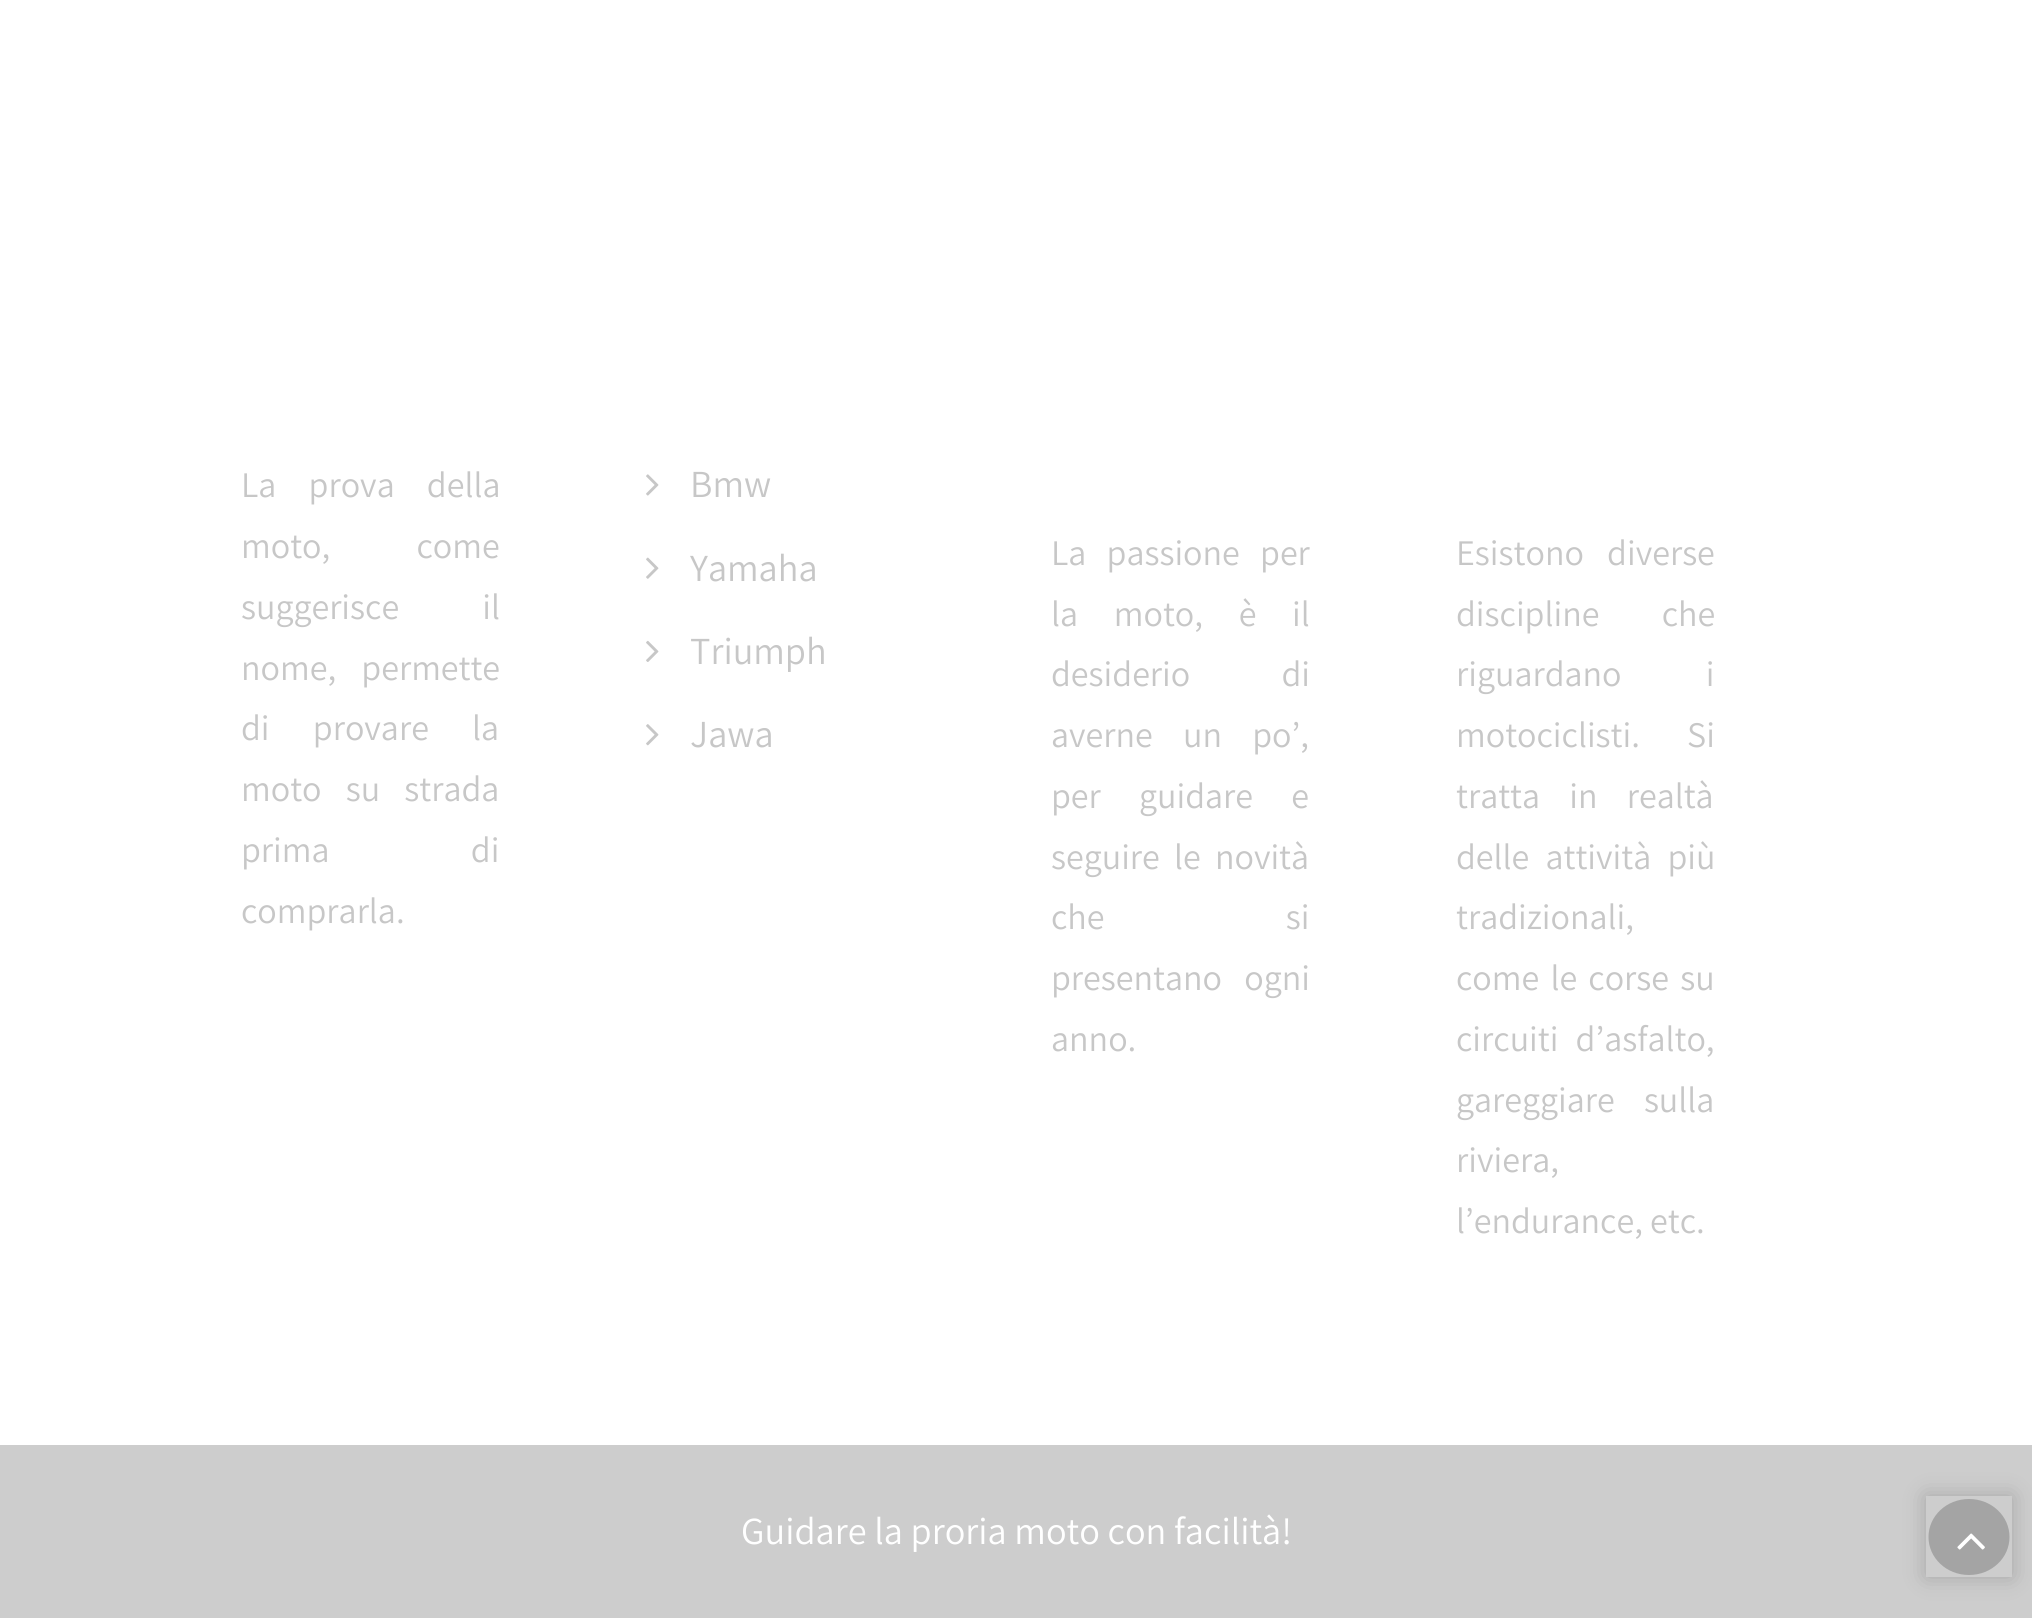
import math
import cairo


def write_spaced(ctx, x, y, s, letter, word):
	ctx.move_to(x, y)
	for ch in s:
		ctx.show_text(ch)
		ctx.rel_move_to(letter + word * (ch == ' '), 0)

def round_path(ctx, x, y, w, h, r):
	ctx.new_sub_path()
	for i, (u, v) in enumerate([(x + w - r, y + h - r), (x + r, y + h - r), (x + r, y + r), (x + w - r, y + r)]):
		ctx.arc(u, v, r, i * math.pi / 2, (i + 1) * math.pi / 2)
	ctx.close_path()

def blur_box(ctx, x, y, w, h, r, blur, alpha):
	ctx.push_group_with_content(cairo.CONTENT_ALPHA)
	ctx.set_operator(cairo.OPERATOR_SOURCE)
	for i in range(15, -16, -2):
		e = blur * i / 6
		if min(w, h) + 2 * e > 0:
			ctx.set_source_rgba(0, 0, 0, alpha * math.erfc((i - 1) / 8.5) / 2)
			round_path(ctx, x - e, y - e, w + 2 * e, h + 2 * e, max(0, min(r + e + blur * .6, min(w, h) / 2 + e)))
			ctx.fill()
	ctx.mask(ctx.pop_group())

def paste(ctx, path, x, y, w, h):
	ctx.save()
	ctx.set_source_surface(cairo.ImageSurface.create_from_png(path), x, y)
	ctx.rectangle(x, y, w, h)
	ctx.fill()
	ctx.restore()

def draw(ctx):
	ctx.set_source_rgb(1, 1, 1)
	ctx.paint()
	ctx.select_font_face('Assistant')
	ctx.set_font_size(36)
	ctx.set_source_rgb(0.78, 0.78, 0.78)
	write_spaced(ctx, 241, 497, 'La prova della', 0, 25)
	write_spaced(ctx, 241, 558, 'moto, come', 0, 79)
	write_spaced(ctx, 241, 619, 'suggerisce il', 0, 76)
	write_spaced(ctx, 241, 680, 'nome, permette', 0, 18)
	write_spaced(ctx, 241, 740, 'di provare la', 0, 36)
	write_spaced(ctx, 241, 801, 'moto su strada', 0, 17)
	write_spaced(ctx, 241, 862, 'prima di', 0, 134)
	ctx.move_to(241, 923)
	ctx.show_text('comprarla.')
	paste(ctx, 'media/1.png', 646, 474, 13, 22)
	ctx.set_font_size(38.25)
	ctx.move_to(690, 497)
	ctx.show_text('Bmw')
	paste(ctx, 'media/2.png', 646, 557, 13, 22)
	ctx.move_to(690, 581)
	ctx.show_text('Yamaha')
	paste(ctx, 'media/3.png', 646, 640, 13, 22)
	ctx.move_to(690, 664)
	ctx.show_text('Triumph')
	paste(ctx, 'media/4.png', 646, 724, 13, 22)
	ctx.move_to(690, 747)
	ctx.show_text('Jawa')
	ctx.set_font_size(36)
	write_spaced(ctx, 1051, 565, 'La passione per', 0, 13)
	write_spaced(ctx, 1051, 626, 'la moto, è il', 0, 28.5)
	write_spaced(ctx, 1051, 686, 'desiderio di', 0, 84)
	write_spaced(ctx, 1051, 747, 'averne un po’,', 0, 23)
	write_spaced(ctx, 1051, 808, 'per guidare e', 0, 31)
	write_spaced(ctx, 1051, 869, 'seguire le novità', 0, 7)
	write_spaced(ctx, 1051, 929, 'che si', 0, 174)
	write_spaced(ctx, 1051, 990, 'presentano ogni', 0, 15)
	ctx.move_to(1051, 1051)
	ctx.show_text('anno.')
	write_spaced(ctx, 1456, 565, 'Esistono diverse', 0, 16)
	write_spaced(ctx, 1456, 626, 'discipline che', 0, 55)
	write_spaced(ctx, 1456, 686, 'riguardano i', 0, 77)
	write_spaced(ctx, 1456, 747, 'motociclisti. Si', 0, 40)
	write_spaced(ctx, 1456, 808, 'tratta in realtà', 0, 22)
	write_spaced(ctx, 1456, 869, 'delle attività più', 0, 9)
	ctx.move_to(1456, 929)
	ctx.show_text('tradizionali,')
	write_spaced(ctx, 1456, 990, 'come le corse su', 0, 4)
	write_spaced(ctx, 1456, 1051, 'circuiti d’asfalto,', 0, 10)
	write_spaced(ctx, 1456, 1112, 'gareggiare sulla', 0, 22)
	ctx.move_to(1456, 1172)
	ctx.show_text('riviera,')
	ctx.move_to(1456, 1233)
	ctx.show_text('l’endurance, etc.')
	ctx.set_source_rgb(0.804, 0.804, 0.804)
	ctx.rectangle(0, 1445, 2032, 173)
	ctx.fill()
	ctx.set_font_size(38.25)
	ctx.set_source_rgb(1, 1, 1)
	ctx.move_to(741, 1544)
	ctx.show_text('Guidare la proria moto con facilità!')
	ctx.save()
	ctx.set_fill_rule(cairo.FILL_RULE_EVEN_ODD)
	ctx.new_path()
	ctx.move_to(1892, 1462)
	ctx.line_to(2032, 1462)
	ctx.line_to(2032, 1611)
	ctx.line_to(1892, 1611)
	ctx.close_path()
	ctx.move_to(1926, 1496)
	ctx.line_to(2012, 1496)
	ctx.line_to(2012, 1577)
	ctx.line_to(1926, 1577)
	ctx.close_path()
	ctx.clip()
	ctx.set_source_rgb(0, 0, 0)
	blur_box(ctx, 1926, 1496, 86, 81, 0, 11, 0.2)
	ctx.restore()
	ctx.set_source_rgb(0.643, 0.643, 0.643)
	ctx.new_path()
	ctx.move_to(1969, 1499)
	ctx.curve_to(1991.5, 1499, 2009.5, 1516, 2009.5, 1537)
	ctx.curve_to(2009.5, 1558, 1991.5, 1575, 1969, 1575)
	ctx.curve_to(1946.5, 1575, 1928.5, 1558, 1928.5, 1537)
	ctx.curve_to(1928.5, 1516, 1946.5, 1499, 1969, 1499)
	ctx.close_path()
	ctx.fill()
	paste(ctx, 'media/5.png', 1957, 1533, 28, 17)


surface = cairo.ImageSurface(cairo.FORMAT_RGB24, 2032, 1621)
ctx = cairo.Context(surface)
options = cairo.FontOptions()
options.set_hint_metrics(cairo.HINT_METRICS_OFF)
options.set_hint_style(cairo.HINT_STYLE_NONE)
ctx.set_font_options(options)
ctx.set_miter_limit(4)
draw(ctx)
surface.write_to_png('image.png')
